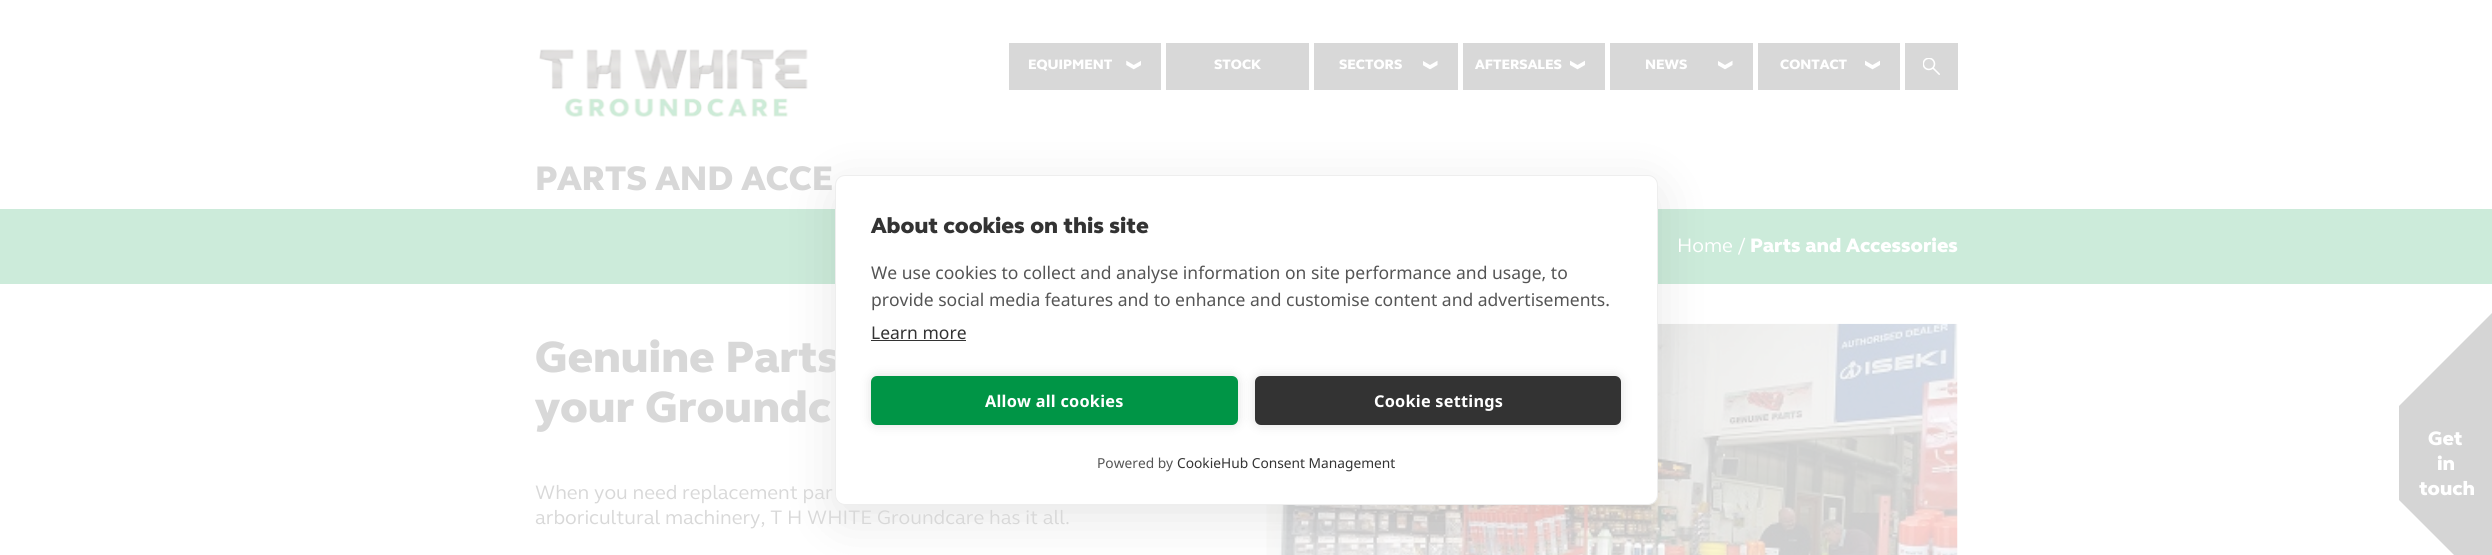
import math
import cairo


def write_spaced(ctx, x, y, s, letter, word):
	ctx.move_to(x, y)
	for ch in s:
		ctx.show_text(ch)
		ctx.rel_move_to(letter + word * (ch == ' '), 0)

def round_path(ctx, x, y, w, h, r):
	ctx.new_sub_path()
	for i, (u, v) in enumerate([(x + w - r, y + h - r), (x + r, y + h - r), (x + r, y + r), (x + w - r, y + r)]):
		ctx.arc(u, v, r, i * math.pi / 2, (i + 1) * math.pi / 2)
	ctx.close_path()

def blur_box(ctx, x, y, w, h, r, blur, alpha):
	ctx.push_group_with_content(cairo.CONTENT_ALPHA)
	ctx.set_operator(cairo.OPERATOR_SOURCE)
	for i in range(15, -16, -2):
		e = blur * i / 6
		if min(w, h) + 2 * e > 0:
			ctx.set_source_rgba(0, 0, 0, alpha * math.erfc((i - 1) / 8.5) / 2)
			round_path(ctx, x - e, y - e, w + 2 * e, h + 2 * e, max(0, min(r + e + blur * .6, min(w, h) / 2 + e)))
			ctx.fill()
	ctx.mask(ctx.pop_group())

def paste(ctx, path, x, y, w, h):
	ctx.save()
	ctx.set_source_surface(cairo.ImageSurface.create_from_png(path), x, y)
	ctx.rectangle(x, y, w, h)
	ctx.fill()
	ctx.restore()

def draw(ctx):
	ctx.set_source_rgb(1, 1, 1)
	ctx.paint()
	paste(ctx, 'media/1.png', 539, 49, 269, 69)
	ctx.set_source_rgb(0.847, 0.847, 0.847)
	ctx.rectangle(1905, 43, 53, 47)
	ctx.fill()
	paste(ctx, 'media/2.png', 1923, 58, 17, 17)
	ctx.rectangle(1009, 43, 152, 47)
	ctx.fill()
	ctx.select_font_face('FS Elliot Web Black')
	ctx.set_font_size(14)
	ctx.set_source_rgb(1, 1, 1)
	ctx.move_to(1028, 69)
	ctx.show_text('EQUIPMENT')
	paste(ctx, 'media/3.png', 1126, 60, 15, 10)
	ctx.set_source_rgb(0.847, 0.847, 0.847)
	ctx.rectangle(1166, 43, 143, 47)
	ctx.fill()
	ctx.set_source_rgb(1, 1, 1)
	ctx.move_to(1214, 69)
	ctx.show_text('STOCK')
	ctx.set_source_rgb(0.847, 0.847, 0.847)
	ctx.rectangle(1314, 43, 144, 47)
	ctx.fill()
	ctx.set_source_rgb(1, 1, 1)
	ctx.move_to(1339, 69)
	ctx.show_text('SECTORS')
	paste(ctx, 'media/4.png', 1423, 60, 15, 10)
	ctx.set_source_rgb(0.847, 0.847, 0.847)
	ctx.rectangle(1463, 43, 142, 47)
	ctx.fill()
	ctx.set_source_rgb(1, 1, 1)
	ctx.move_to(1475, 69)
	ctx.show_text('AFTERSALES')
	paste(ctx, 'media/5.png', 1570, 60, 15, 10)
	ctx.set_source_rgb(0.847, 0.847, 0.847)
	ctx.rectangle(1610, 43, 143, 47)
	ctx.fill()
	ctx.set_source_rgb(1, 1, 1)
	ctx.move_to(1645, 69)
	ctx.show_text('NEWS')
	paste(ctx, 'media/4.png', 1718, 60, 15, 10)
	ctx.set_source_rgb(0.847, 0.847, 0.847)
	ctx.rectangle(1758, 43, 142, 47)
	ctx.fill()
	ctx.set_source_rgb(1, 1, 1)
	ctx.move_to(1780, 69)
	ctx.show_text('CONTACT')
	paste(ctx, 'media/5.png', 1865, 60, 15, 10)
	ctx.set_font_size(35)
	ctx.set_source_rgb(0.847, 0.847, 0.847)
	ctx.move_to(535, 190)
	ctx.show_text('PARTS AND ACCE')
	ctx.set_source_rgb(0.8, 0.918, 0.855)
	ctx.rectangle(0, 209, 2492, 75)
	ctx.fill()
	paste(ctx, 'media/6.png', 1266, 323, 692, 232)
	ctx.set_source_rgb(0, 0, 0)
	blur_box(ctx, 835, 188, 823, 330, 10, 25, 0.1)
	ctx.set_font_size(45)
	ctx.set_source_rgb(0.847, 0.847, 0.847)
	ctx.move_to(535, 372)
	ctx.show_text('Genuine Parts')
	ctx.set_source_rgb(1, 1, 1)
	round_path(ctx, 835.5, 175.5, 822, 329, 9.5)
	ctx.fill_preserve()
	ctx.set_source_rgb(0.933, 0.933, 0.933)
	ctx.set_line_width(1)
	ctx.stroke()
	ctx.set_font_size(22.5)
	ctx.set_source_rgb(0.2, 0.2, 0.2)
	ctx.move_to(871, 233)
	ctx.show_text('About cookies on this site')
	ctx.select_font_face('Noto Sans')
	ctx.set_font_size(17.5)
	ctx.set_source_rgb(0.333, 0.333, 0.333)
	ctx.move_to(871, 279)
	ctx.show_text('We use cookies to collect and analyse information on site performance and usage, to')
	ctx.move_to(871, 306)
	ctx.show_text('provide social media features and to enhance and customise content and advertisements.')
	ctx.set_source_rgb(0.2, 0.2, 0.2)
	ctx.move_to(871, 339)
	ctx.show_text('Learn more')
	ctx.rectangle(871, 340, 95, 1)
	ctx.fill()
	ctx.set_source_rgb(0, 0, 0)
	blur_box(ctx, 871, 376, 367, 49, 6, 6, 0.12)
	ctx.set_source_rgb(0, 0.584, 0.275)
	round_path(ctx, 871, 376, 367, 49, 6)
	ctx.fill()
	ctx.select_font_face('Noto Sans', cairo.FONT_SLANT_NORMAL, cairo.FONT_WEIGHT_BOLD)
	ctx.set_font_size(16.25)
	ctx.set_source_rgb(1, 1, 1)
	write_spaced(ctx, 985, 407, 'Allow all cookies', 0.25, 0)
	ctx.set_source_rgb(0, 0, 0)
	blur_box(ctx, 1255, 376, 366, 49, 6, 6, 0.12)
	ctx.set_source_rgb(0.2, 0.2, 0.2)
	round_path(ctx, 1255, 376, 366, 49, 6)
	ctx.fill()
	ctx.set_source_rgb(1, 1, 1)
	write_spaced(ctx, 1374, 407, 'Cookie settings', 0.25, 0)
	ctx.select_font_face('Noto Sans')
	ctx.set_font_size(13.75)
	ctx.set_source_rgb(0.333, 0.333, 0.333)
	ctx.move_to(1097, 468)
	ctx.show_text('Powered by')
	ctx.set_source_rgb(0.2, 0.2, 0.2)
	ctx.move_to(1177, 468)
	ctx.show_text('CookieHub Consent Management')
	ctx.select_font_face('FS Elliot Web')
	ctx.set_font_size(20)
	ctx.set_source_rgb(1, 1, 1)
	ctx.move_to(1677, 252)
	ctx.show_text('Home /')
	ctx.select_font_face('FS Elliot Web Black')
	ctx.move_to(1750, 252)
	ctx.show_text('Parts and Accessories')
	ctx.set_font_size(45)
	ctx.set_source_rgb(0.847, 0.847, 0.847)
	ctx.move_to(535, 422)
	ctx.show_text('your Groundc')
	ctx.select_font_face('FS Elliot Web')
	ctx.set_font_size(20)
	ctx.move_to(535, 499)
	ctx.show_text('When you need replacement par')
	ctx.move_to(535, 524)
	ctx.show_text('arboricultural machinery, T H WHITE Groundcare has it all.')
	ctx.set_source_rgb(0.835, 0.835, 0.835)
	ctx.new_path()
	ctx.move_to(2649, 406)
	ctx.line_to(2399, 406)
	ctx.line_to(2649, 156)
	ctx.close_path()
	ctx.fill()
	ctx.rectangle(2399, 406, 93, 94)
	ctx.fill()
	ctx.select_font_face('FS Elliot Web Black')
	ctx.set_source_rgb(1, 1, 1)
	for x, y, s in [
		(2428, 445, 'Get'),
		(2437, 470, 'in'),
		(2419, 495, 'touch'),
	]:
		ctx.move_to(x, y)
		ctx.show_text(s)
	ctx.set_source_rgb(0.835, 0.835, 0.835)
	ctx.new_path()
	ctx.move_to(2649, 500)
	ctx.line_to(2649, 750)
	ctx.line_to(2399, 500)
	ctx.close_path()
	ctx.fill()


surface = cairo.ImageSurface(cairo.FORMAT_RGB24, 2492, 555)
ctx = cairo.Context(surface)
options = cairo.FontOptions()
options.set_hint_metrics(cairo.HINT_METRICS_OFF)
options.set_hint_style(cairo.HINT_STYLE_NONE)
ctx.set_font_options(options)
ctx.set_miter_limit(4)
draw(ctx)
surface.write_to_png('image.png')
